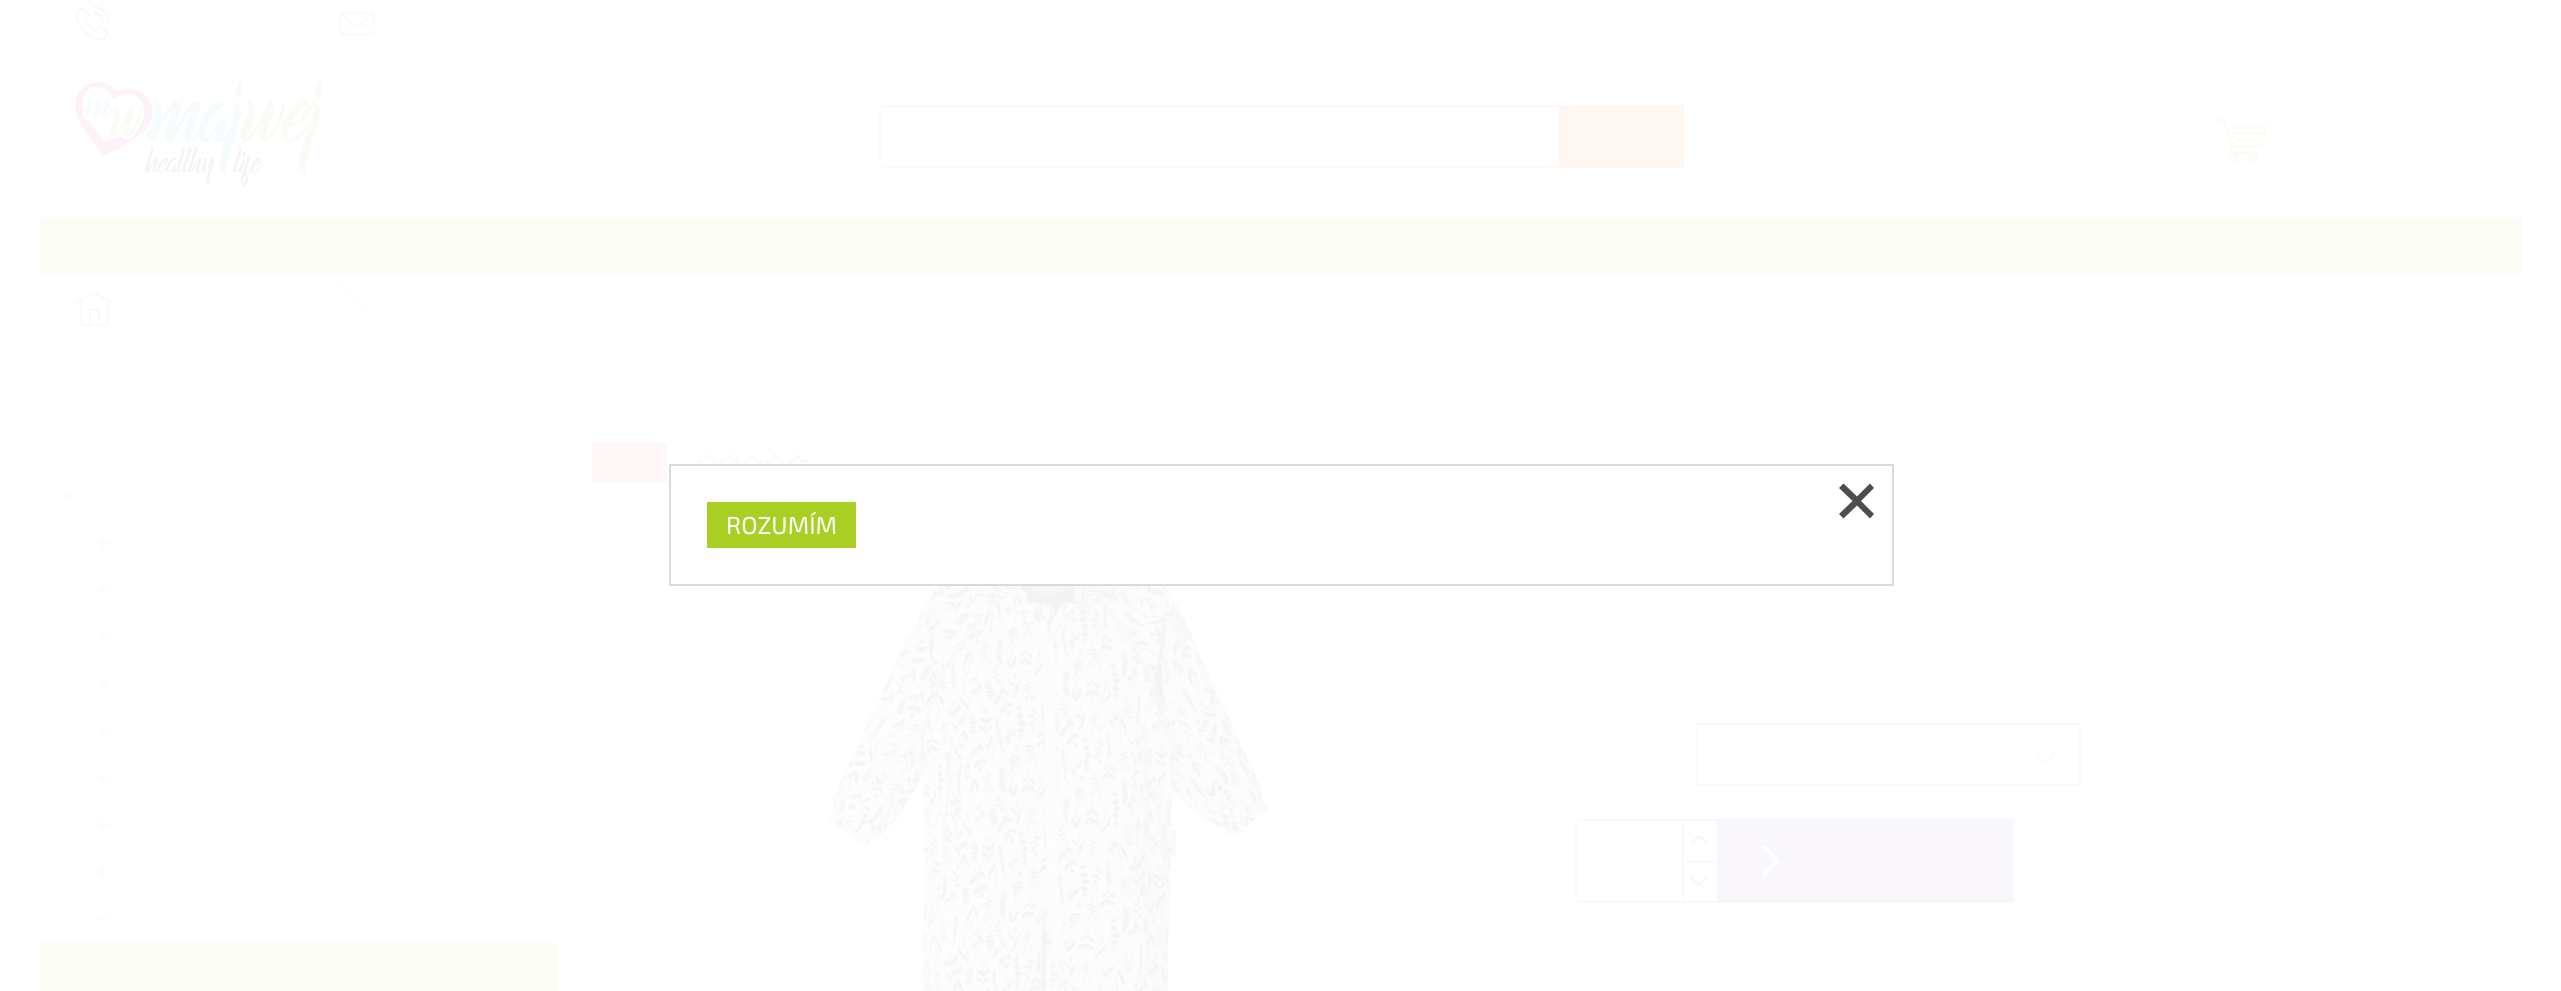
import math
import cairo


def round_path(ctx, x, y, w, h, r):
	ctx.new_sub_path()
	for i, (u, v) in enumerate([(x + w - r, y + h - r), (x + r, y + h - r), (x + r, y + r), (x + w - r, y + r)]):
		ctx.arc(u, v, r, i * math.pi / 2, (i + 1) * math.pi / 2)
	ctx.close_path()

def paste(ctx, path, x, y, w, h):
	ctx.save()
	ctx.set_source_surface(cairo.ImageSurface.create_from_png(path), x, y)
	ctx.rectangle(x, y, w, h)
	ctx.fill()
	ctx.restore()

def draw(ctx):
	ctx.set_source_rgb(1, 1, 1)
	ctx.paint()
	paste(ctx, 'media/1.png', 75, 5, 36, 36)
	paste(ctx, 'media/2.png', 339, 11, 36, 24)
	paste(ctx, 'media/3.png', 75, 81, 247, 105)
	round_path(ctx, 880, 106, 803, 61, 4)
	ctx.set_source_rgb(0.98, 0.98, 0.98)
	ctx.stroke()
	ctx.set_source_rgb(1, 0.969, 0.949)
	ctx.rectangle(1560, 106, 123, 61)
	ctx.fill_preserve()
	ctx.set_source_rgb(1, 0.961, 0.949)
	ctx.stroke()
	paste(ctx, 'media/4.png', 2215, 117, 53, 46)
	ctx.set_source_rgb(0.984, 0.992, 0.957)
	ctx.rectangle(40, 219, 2482, 56)
	ctx.fill()
	paste(ctx, 'media/5.png', 75, 292, 39, 34)
	ctx.set_source_rgb(0.992, 0.992, 0.992)
	ctx.new_path()
	ctx.move_to(126, 275.5)
	ctx.line_to(127.5, 274.5)
	ctx.line_to(162.5, 309.5)
	ctx.line_to(161.5, 311)
	ctx.close_path()
	ctx.fill()
	ctx.new_path()
	ctx.move_to(330, 274.5)
	ctx.line_to(331.5, 273)
	ctx.line_to(368, 309.5)
	ctx.line_to(366.5, 311)
	ctx.close_path()
	ctx.fill()
	ctx.new_path()
	ctx.move_to(613.5, 274.5)
	ctx.line_to(614.5, 273)
	ctx.line_to(651, 309.5)
	ctx.line_to(650, 311)
	ctx.close_path()
	ctx.fill()
	ctx.new_path()
	ctx.move_to(813.5, 274.5)
	ctx.line_to(814.5, 273)
	ctx.line_to(851.5, 309.5)
	ctx.line_to(850, 311)
	ctx.close_path()
	ctx.fill()
	ctx.set_source_rgb(0.984, 0.992, 0.957)
	ctx.rectangle(63, 495, 11, 2)
	ctx.fill()
	paste(ctx, 'media/6.png', 98, 537, 11, 12)
	paste(ctx, 'media/7.png', 98, 585, 11, 11)
	paste(ctx, 'media/8.png', 98, 632, 11, 11)
	paste(ctx, 'media/9.png', 98, 679, 11, 12)
	paste(ctx, 'media/7.png', 98, 725, 11, 11)
	paste(ctx, 'media/8.png', 98, 772, 11, 11)
	paste(ctx, 'media/9.png', 98, 819, 11, 12)
	paste(ctx, 'media/6.png', 98, 866, 11, 12)
	ctx.rectangle(98, 917, 11, 2)
	ctx.rectangle(40, 943, 517, 48)
	ctx.fill()
	ctx.set_source_rgb(0.992, 0.965, 0.965)
	ctx.rectangle(592, 443, 75, 40)
	ctx.fill()
	paste(ctx, 'media/10.png', 696, 453, 22, 11)
	paste(ctx, 'media/11.png', 719, 453, 22, 11)
	paste(ctx, 'media/12.png', 742, 453, 21, 11)
	paste(ctx, 'media/13.png', 764, 453, 22, 11)
	paste(ctx, 'media/10.png', 787, 453, 22, 11)
	paste(ctx, 'media/14.png', 827, 586, 442, 405)
	paste(ctx, 'media/15.png', 2009, 722, 70, 62)
	ctx.rectangle(1697, 724, 383, 61)
	ctx.set_source_rgb(0.98, 0.98, 0.98)
	ctx.stroke()
	ctx.set_fill_rule(cairo.FILL_RULE_EVEN_ODD)
	ctx.new_path()
	ctx.move_to(1580, 819)
	ctx.line_to(1717, 819)
	ctx.line_to(1717, 903)
	ctx.line_to(1580, 903)
	ctx.curve_to(1577, 903, 1575, 901, 1575, 898)
	ctx.line_to(1575, 824)
	ctx.curve_to(1575, 821, 1577, 819, 1580, 819)
	ctx.close_path()
	ctx.move_to(1580, 821)
	ctx.line_to(1717, 821)
	ctx.line_to(1717, 901)
	ctx.line_to(1580, 901)
	ctx.curve_to(1578, 901, 1577, 900, 1577, 898)
	ctx.line_to(1577, 824)
	ctx.curve_to(1577, 822, 1578, 821, 1580, 821)
	ctx.close_path()
	ctx.fill()
	ctx.rectangle(1682, 821, 2, 40)
	ctx.fill()
	ctx.set_source_rgb(0.965, 0.965, 0.965)
	ctx.set_fill_rule(cairo.FILL_RULE_WINDING)
	ctx.new_path()
	ctx.move_to(1690.5, 842.5)
	ctx.line_to(1692, 844)
	ctx.line_to(1699, 837.5)
	ctx.line_to(1706, 844)
	ctx.line_to(1707.5, 842.5)
	ctx.line_to(1699, 834.5)
	ctx.close_path()
	ctx.fill()
	ctx.set_source_rgb(0.98, 0.98, 0.98)
	ctx.rectangle(1682, 861, 35, 2)
	ctx.fill()
	ctx.rectangle(1682, 861, 2, 40)
	ctx.fill()
	ctx.set_source_rgb(0.965, 0.965, 0.965)
	ctx.new_path()
	ctx.move_to(1690.5, 878)
	ctx.line_to(1692, 876.5)
	ctx.line_to(1699, 883)
	ctx.line_to(1706, 876.5)
	ctx.line_to(1707.5, 878)
	ctx.line_to(1699, 886)
	ctx.close_path()
	ctx.fill()
	ctx.set_source_rgb(0.976, 0.965, 0.984)
	ctx.rectangle(1717, 819, 297, 84)
	ctx.fill()
	ctx.set_source_rgb(1, 1, 1)
	ctx.new_path()
	ctx.move_to(1764, 877.5)
	ctx.line_to(1761, 874.5)
	ctx.line_to(1774.5, 861)
	ctx.line_to(1761, 847)
	ctx.line_to(1764, 844)
	ctx.line_to(1780.5, 861)
	ctx.close_path()
	ctx.fill()
	ctx.rectangle(670, 465, 1223, 120)
	ctx.set_source_rgb(0.855, 0.855, 0.855)
	ctx.stroke()
	ctx.set_source_rgb(0.302, 0.302, 0.302)
	ctx.new_path()
	ctx.move_to(1843.5, 483.5)
	ctx.line_to(1839, 488)
	ctx.line_to(1852.5, 501)
	ctx.line_to(1839, 514)
	ctx.line_to(1843.5, 518.5)
	ctx.line_to(1857, 505.5)
	ctx.line_to(1870, 518.5)
	ctx.line_to(1874, 514)
	ctx.line_to(1861, 501)
	ctx.line_to(1874, 488)
	ctx.line_to(1870, 483.5)
	ctx.line_to(1857, 496.5)
	ctx.close_path()
	ctx.fill()
	ctx.set_source_rgb(0.667, 0.812, 0.141)
	ctx.rectangle(707, 502, 149, 46)
	ctx.fill()
	ctx.select_font_face('Exo 2')
	ctx.set_font_size(24.5)
	ctx.set_source_rgb(1, 1, 1)
	ctx.move_to(726, 534)
	ctx.show_text('ROZUMÍM')


surface = cairo.ImageSurface(cairo.FORMAT_RGB24, 2561, 991)
ctx = cairo.Context(surface)
options = cairo.FontOptions()
options.set_hint_metrics(cairo.HINT_METRICS_OFF)
options.set_hint_style(cairo.HINT_STYLE_NONE)
ctx.set_font_options(options)
ctx.set_miter_limit(4)
draw(ctx)
surface.write_to_png('image.png')
